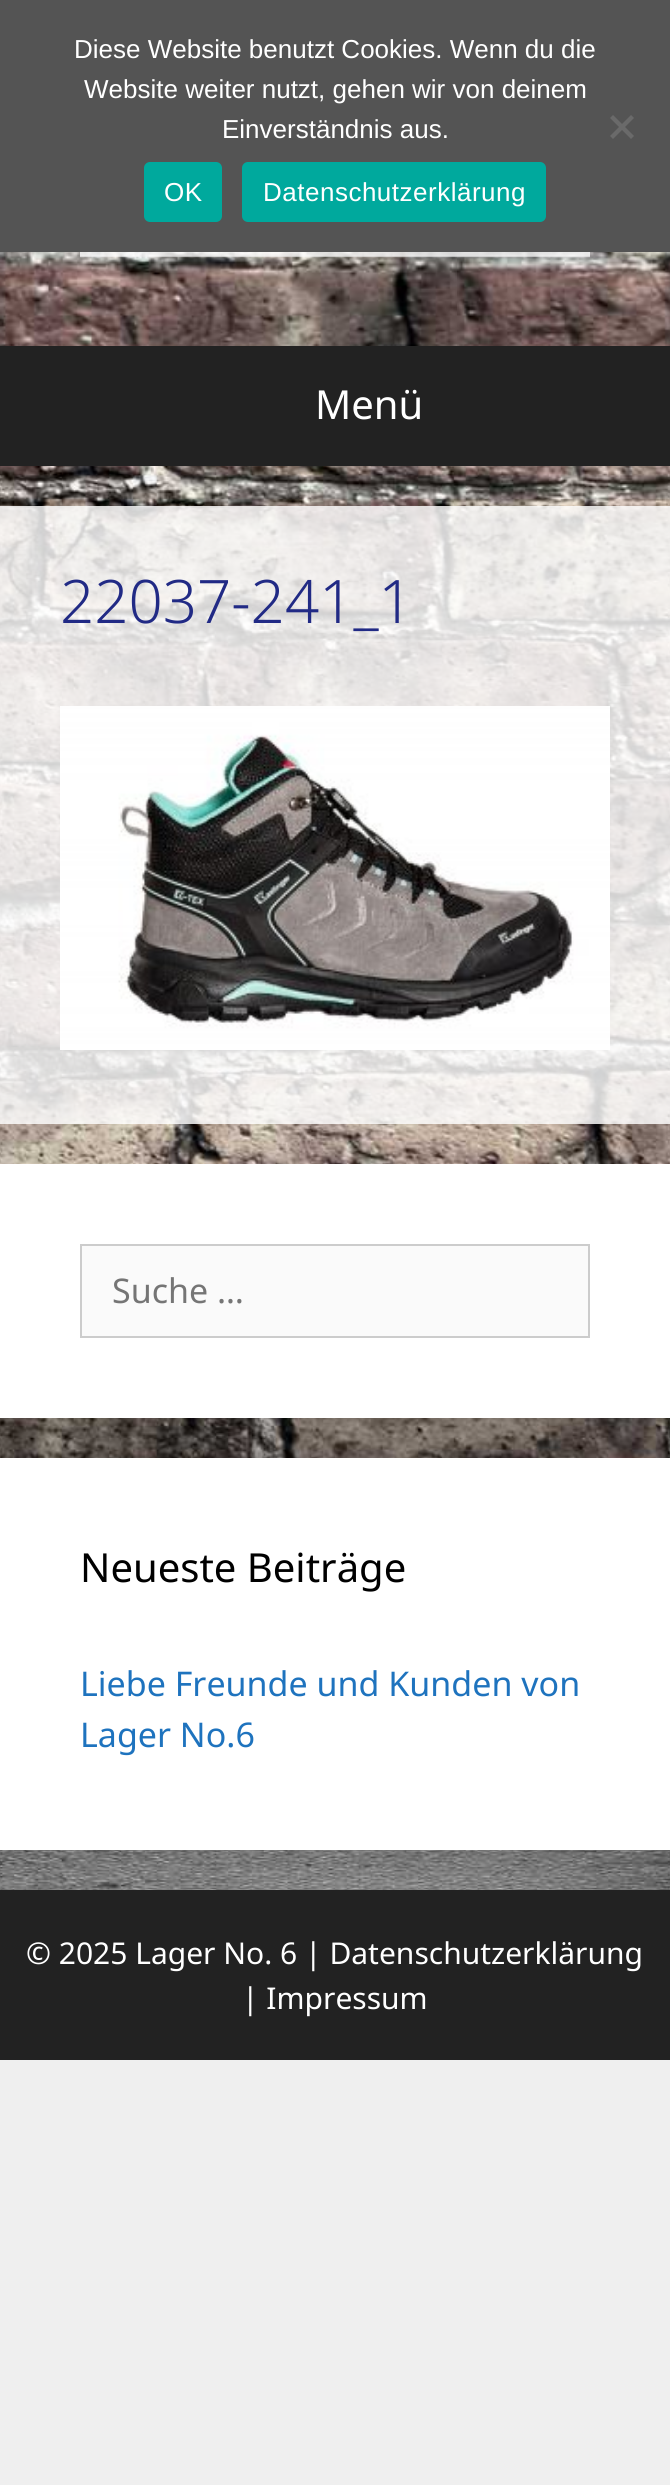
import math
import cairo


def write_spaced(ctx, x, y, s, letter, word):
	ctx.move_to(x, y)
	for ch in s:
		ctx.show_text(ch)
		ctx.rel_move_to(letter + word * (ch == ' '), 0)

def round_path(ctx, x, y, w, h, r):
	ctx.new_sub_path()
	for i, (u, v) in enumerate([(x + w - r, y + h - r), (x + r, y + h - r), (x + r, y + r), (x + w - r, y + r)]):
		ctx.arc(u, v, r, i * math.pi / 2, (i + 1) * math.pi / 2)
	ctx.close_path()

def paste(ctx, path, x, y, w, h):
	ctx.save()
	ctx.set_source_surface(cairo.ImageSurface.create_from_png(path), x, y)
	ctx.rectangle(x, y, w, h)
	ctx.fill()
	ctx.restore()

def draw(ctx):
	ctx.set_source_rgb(0.937, 0.937, 0.937)
	ctx.paint()
	paste(ctx, 'media/1.png', 0, 252, 670, 1638)
	ctx.set_source_rgb(0.329, 0.329, 0.329)
	ctx.rectangle(0, 0, 670, 252)
	ctx.fill()
	ctx.select_font_face('Liberation Sans')
	ctx.set_font_size(26)
	ctx.set_source_rgb(1, 1, 1)
	for x, y, s in [
		(74, 58, 'Diese Website benutzt Cookies. Wenn du die'),
		(84, 98, 'Website weiter nutzt, gehen wir von deinem'),
		(222, 138, 'Einverständnis aus.'),
	]:
		ctx.move_to(x, y)
		ctx.show_text(s)
	ctx.set_source_rgb(0.416, 0.416, 0.416)
	ctx.new_path()
	ctx.move_to(631, 115)
	ctx.line_to(634, 118)
	ctx.line_to(613, 139)
	ctx.line_to(610, 136)
	ctx.close_path()
	ctx.fill()
	ctx.new_path()
	ctx.move_to(610, 118)
	ctx.line_to(613, 115)
	ctx.line_to(634, 136)
	ctx.line_to(631, 139)
	ctx.close_path()
	ctx.fill()
	ctx.set_source_rgb(0, 0.663, 0.616)
	round_path(ctx, 144, 162, 78, 60, 6)
	ctx.fill()
	ctx.set_source_rgb(1, 1, 1)
	write_spaced(ctx, 164, 201, 'OK', 0.5, 0)
	ctx.set_source_rgb(0, 0.663, 0.616)
	round_path(ctx, 242, 162, 304, 60, 6)
	ctx.fill()
	ctx.set_source_rgb(1, 1, 1)
	write_spaced(ctx, 263, 201, 'Datenschutzerklärung', 0.5, 0)
	paste(ctx, 'media/2.png', 0, 252, 670, 94)
	paste(ctx, 'media/3.png', 80, 252, 510, 6)
	ctx.set_source_rgb(0.133, 0.133, 0.133)
	ctx.rectangle(0, 346, 670, 120)
	ctx.fill()
	ctx.select_font_face('Noto Sans')
	ctx.set_font_size(40)
	ctx.set_source_rgb(1, 1, 1)
	ctx.move_to(315, 419)
	ctx.show_text('Menü')
	ctx.set_source_rgba(1, 1, 1, 0.82)
	ctx.rectangle(0, 506, 670, 618)
	ctx.fill()
	ctx.select_font_face('Noto Sans Light')
	ctx.set_font_size(60)
	ctx.set_source_rgb(0.129, 0.165, 0.522)
	ctx.move_to(60, 623)
	ctx.show_text('22037-241_1')
	paste(ctx, 'media/4.png', 60, 706, 550, 344)
	ctx.set_source_rgb(1, 1, 1)
	ctx.rectangle(0, 1164, 670, 254)
	ctx.fill()
	ctx.set_source_rgb(0.98, 0.98, 0.98)
	ctx.rectangle(81, 1245, 508, 92)
	ctx.fill_preserve()
	ctx.set_source_rgb(0.8, 0.8, 0.8)
	ctx.stroke()
	ctx.select_font_face('Noto Sans')
	ctx.set_font_size(34)
	ctx.set_source_rgb(0.459, 0.459, 0.459)
	ctx.move_to(112, 1303)
	ctx.show_text('Suche …')
	ctx.set_source_rgb(1, 1, 1)
	ctx.rectangle(0, 1458, 670, 392)
	ctx.fill()
	ctx.set_font_size(40)
	ctx.set_source_rgb(0, 0, 0)
	ctx.move_to(80, 1582)
	ctx.show_text('Neueste Beiträge')
	ctx.set_font_size(34)
	ctx.set_source_rgb(0.118, 0.451, 0.745)
	ctx.move_to(80, 1696)
	ctx.show_text('Liebe Freunde und Kunden von')
	ctx.move_to(80, 1747)
	ctx.show_text('Lager No.6')
	ctx.set_source_rgb(0.133, 0.133, 0.133)
	ctx.rectangle(0, 1890, 670, 170)
	ctx.fill()
	ctx.set_font_size(30)
	ctx.set_source_rgb(1, 1, 1)
	ctx.move_to(26, 1964)
	ctx.show_text('© 2025 Lager No. 6 | Datenschutzerklärung')
	ctx.move_to(242, 2009)
	ctx.show_text('| Impressum')


surface = cairo.ImageSurface(cairo.FORMAT_RGB24, 670, 2485)
ctx = cairo.Context(surface)
options = cairo.FontOptions()
options.set_hint_metrics(cairo.HINT_METRICS_OFF)
options.set_hint_style(cairo.HINT_STYLE_NONE)
ctx.set_font_options(options)
ctx.set_miter_limit(4)
draw(ctx)
surface.write_to_png('image.png')
